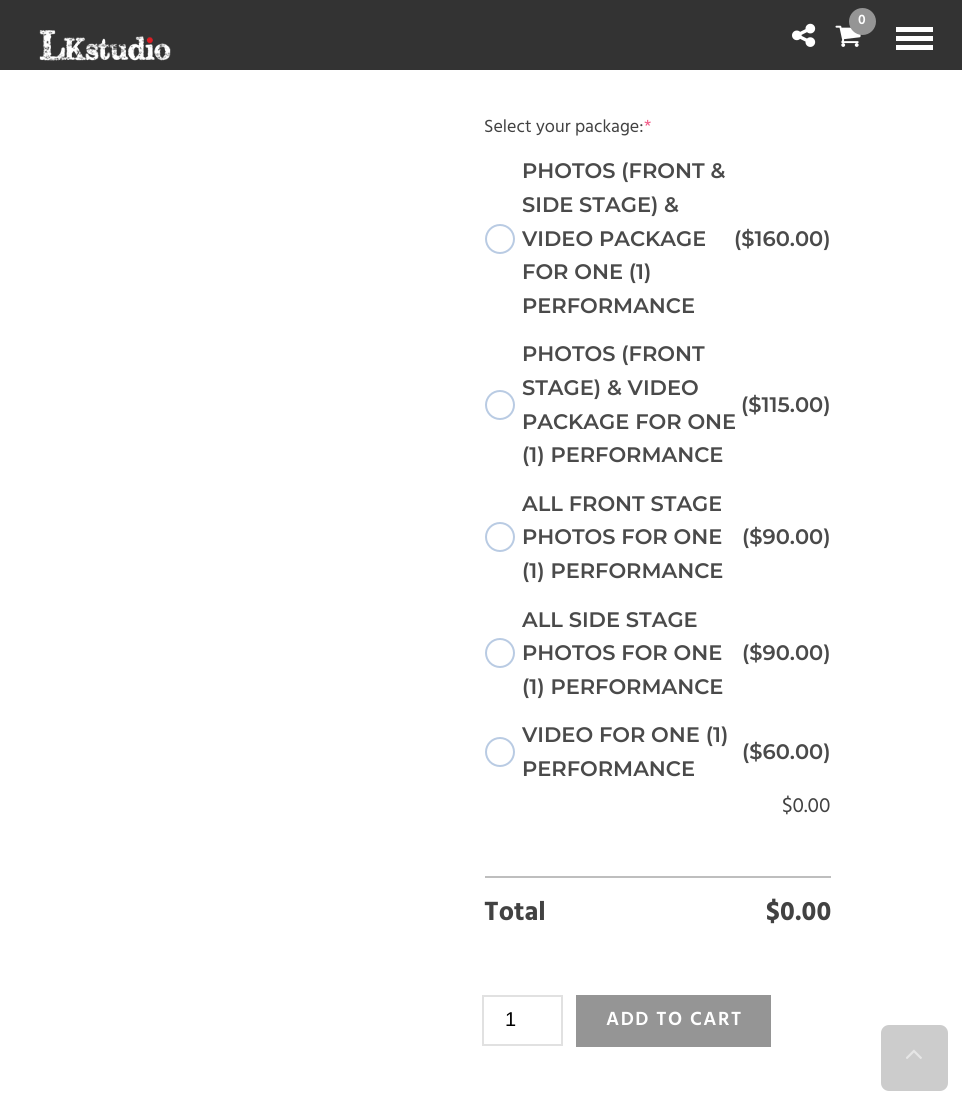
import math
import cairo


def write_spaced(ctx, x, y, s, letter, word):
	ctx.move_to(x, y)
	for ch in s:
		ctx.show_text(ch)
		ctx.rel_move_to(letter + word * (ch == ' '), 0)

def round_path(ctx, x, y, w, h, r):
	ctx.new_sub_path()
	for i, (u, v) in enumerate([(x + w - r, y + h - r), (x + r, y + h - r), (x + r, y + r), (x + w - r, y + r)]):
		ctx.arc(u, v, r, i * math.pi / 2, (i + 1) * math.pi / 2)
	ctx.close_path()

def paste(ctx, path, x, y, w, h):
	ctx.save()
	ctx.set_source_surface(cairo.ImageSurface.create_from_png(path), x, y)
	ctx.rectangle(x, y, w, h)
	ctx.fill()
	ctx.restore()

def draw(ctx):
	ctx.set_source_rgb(1, 1, 1)
	ctx.paint()
	ctx.set_source_rgb(0.2, 0.2, 0.2)
	ctx.rectangle(0, 0, 962, 70)
	ctx.fill()
	paste(ctx, 'media/1.png', 835, 25, 26, 22)
	ctx.set_source_rgb(0.584, 0.584, 0.584)
	ctx.arc(862.5, 21.5, 13.5, 0, 2 * math.pi)
	ctx.fill()
	ctx.select_font_face('Hind SemiBold')
	ctx.set_font_size(14)
	ctx.set_source_rgb(1, 1, 1)
	ctx.move_to(858, 24)
	ctx.show_text('0')
	paste(ctx, 'media/2.png', 792, 23, 24, 24)
	ctx.rectangle(896, 27, 37, 5)
	ctx.rectangle(896, 36, 37, 5)
	ctx.rectangle(896, 45, 37, 5)
	ctx.fill()
	paste(ctx, 'media/3.png', 39, 30, 132, 31)
	ctx.select_font_face('Hind')
	ctx.set_font_size(18)
	ctx.set_source_rgb(0.259, 0.259, 0.259)
	ctx.move_to(484, 132)
	ctx.show_text('Select your package:')
	ctx.set_source_rgb(0.949, 0.353, 0.529)
	ctx.move_to(644, 132)
	ctx.show_text('*')
	ctx.new_path()
	ctx.arc(500, 239, 14, 0, 2 * math.pi)
	ctx.set_source_rgb(0.725, 0.796, 0.89)
	ctx.stroke()
	ctx.select_font_face('Montserrat SemiBold')
	ctx.set_font_size(21)
	ctx.set_source_rgb(0.29, 0.29, 0.29)
	for x, y, s in [
		(522, 178, 'PHOTOS (FRONT &'),
		(522, 212, 'SIDE STAGE) &'),
		(522, 246, 'VIDEO PACKAGE'),
		(522, 279, 'FOR ONE (1)'),
		(522, 313, 'PERFORMANCE'),
		(734, 246, '($160.00)'),
	]:
		ctx.move_to(x, y)
		ctx.show_text(s)
	ctx.new_path()
	ctx.arc(500, 405, 14, 0, 2 * math.pi)
	ctx.set_source_rgb(0.725, 0.796, 0.89)
	ctx.stroke()
	ctx.set_source_rgb(0.29, 0.29, 0.29)
	for x, y, s in [
		(522, 361, 'PHOTOS (FRONT'),
		(522, 395, 'STAGE) & VIDEO'),
		(522, 429, 'PACKAGE FOR ONE'),
		(522, 462, '(1) PERFORMANCE'),
		(741, 412, '($115.00)'),
	]:
		ctx.move_to(x, y)
		ctx.show_text(s)
	ctx.new_path()
	ctx.arc(500, 537, 14, 0, 2 * math.pi)
	ctx.set_source_rgb(0.725, 0.796, 0.89)
	ctx.stroke()
	ctx.set_source_rgb(0.29, 0.29, 0.29)
	for x, y, s in [
		(522, 511, 'ALL FRONT STAGE'),
		(522, 544, 'PHOTOS FOR ONE'),
		(522, 578, '(1) PERFORMANCE'),
		(742, 544, '($90.00)'),
	]:
		ctx.move_to(x, y)
		ctx.show_text(s)
	ctx.new_path()
	ctx.arc(500, 653, 14, 0, 2 * math.pi)
	ctx.set_source_rgb(0.725, 0.796, 0.89)
	ctx.stroke()
	ctx.set_source_rgb(0.29, 0.29, 0.29)
	for x, y, s in [
		(522, 627, 'ALL SIDE STAGE'),
		(522, 660, 'PHOTOS FOR ONE'),
		(522, 694, '(1) PERFORMANCE'),
		(742, 660, '($90.00)'),
	]:
		ctx.move_to(x, y)
		ctx.show_text(s)
	ctx.new_path()
	ctx.arc(500, 752, 14, 0, 2 * math.pi)
	ctx.set_source_rgb(0.725, 0.796, 0.89)
	ctx.stroke()
	ctx.set_source_rgb(0.29, 0.29, 0.29)
	for x, y, s in [
		(522, 742, 'VIDEO FOR ONE (1)'),
		(522, 776, 'PERFORMANCE'),
		(742, 759, '($60.00)'),
	]:
		ctx.move_to(x, y)
		ctx.show_text(s)
	ctx.select_font_face('Hind')
	ctx.set_source_rgb(0.259, 0.259, 0.259)
	ctx.move_to(782, 812)
	ctx.show_text('$0.00')
	ctx.set_source_rgb(0.745, 0.745, 0.745)
	ctx.rectangle(485, 876, 346, 2)
	ctx.fill()
	ctx.select_font_face('Hind', cairo.FONT_SLANT_NORMAL, cairo.FONT_WEIGHT_BOLD)
	ctx.set_font_size(27)
	ctx.set_source_rgb(0.259, 0.259, 0.259)
	ctx.move_to(484, 920)
	ctx.show_text('Total')
	ctx.move_to(766, 920)
	ctx.show_text('$0.00')
	ctx.rectangle(483, 996, 79, 49)
	ctx.set_source_rgb(0.882, 0.882, 0.882)
	ctx.stroke()
	ctx.select_font_face('Liberation Sans')
	ctx.set_font_size(20)
	ctx.set_source_rgb(0, 0, 0)
	ctx.move_to(505, 1026)
	ctx.show_text('1')
	ctx.set_source_rgb(0.584, 0.584, 0.584)
	ctx.rectangle(576, 995, 195, 52)
	ctx.fill()
	ctx.select_font_face('Hind SemiBold')
	ctx.set_font_size(19.5)
	ctx.set_source_rgb(1, 1, 1)
	write_spaced(ctx, 606, 1025, 'ADD TO CART', 1.5, 0)
	ctx.set_source_rgb(0.8, 0.8, 0.8)
	round_path(ctx, 881, 1025, 67, 66, 8)
	ctx.fill()
	paste(ctx, 'media/4.png', 906, 1049, 16, 10)


surface = cairo.ImageSurface(cairo.FORMAT_RGB24, 962, 1101)
ctx = cairo.Context(surface)
options = cairo.FontOptions()
options.set_hint_metrics(cairo.HINT_METRICS_OFF)
options.set_hint_style(cairo.HINT_STYLE_NONE)
ctx.set_font_options(options)
ctx.set_miter_limit(4)
draw(ctx)
surface.write_to_png('image.png')
